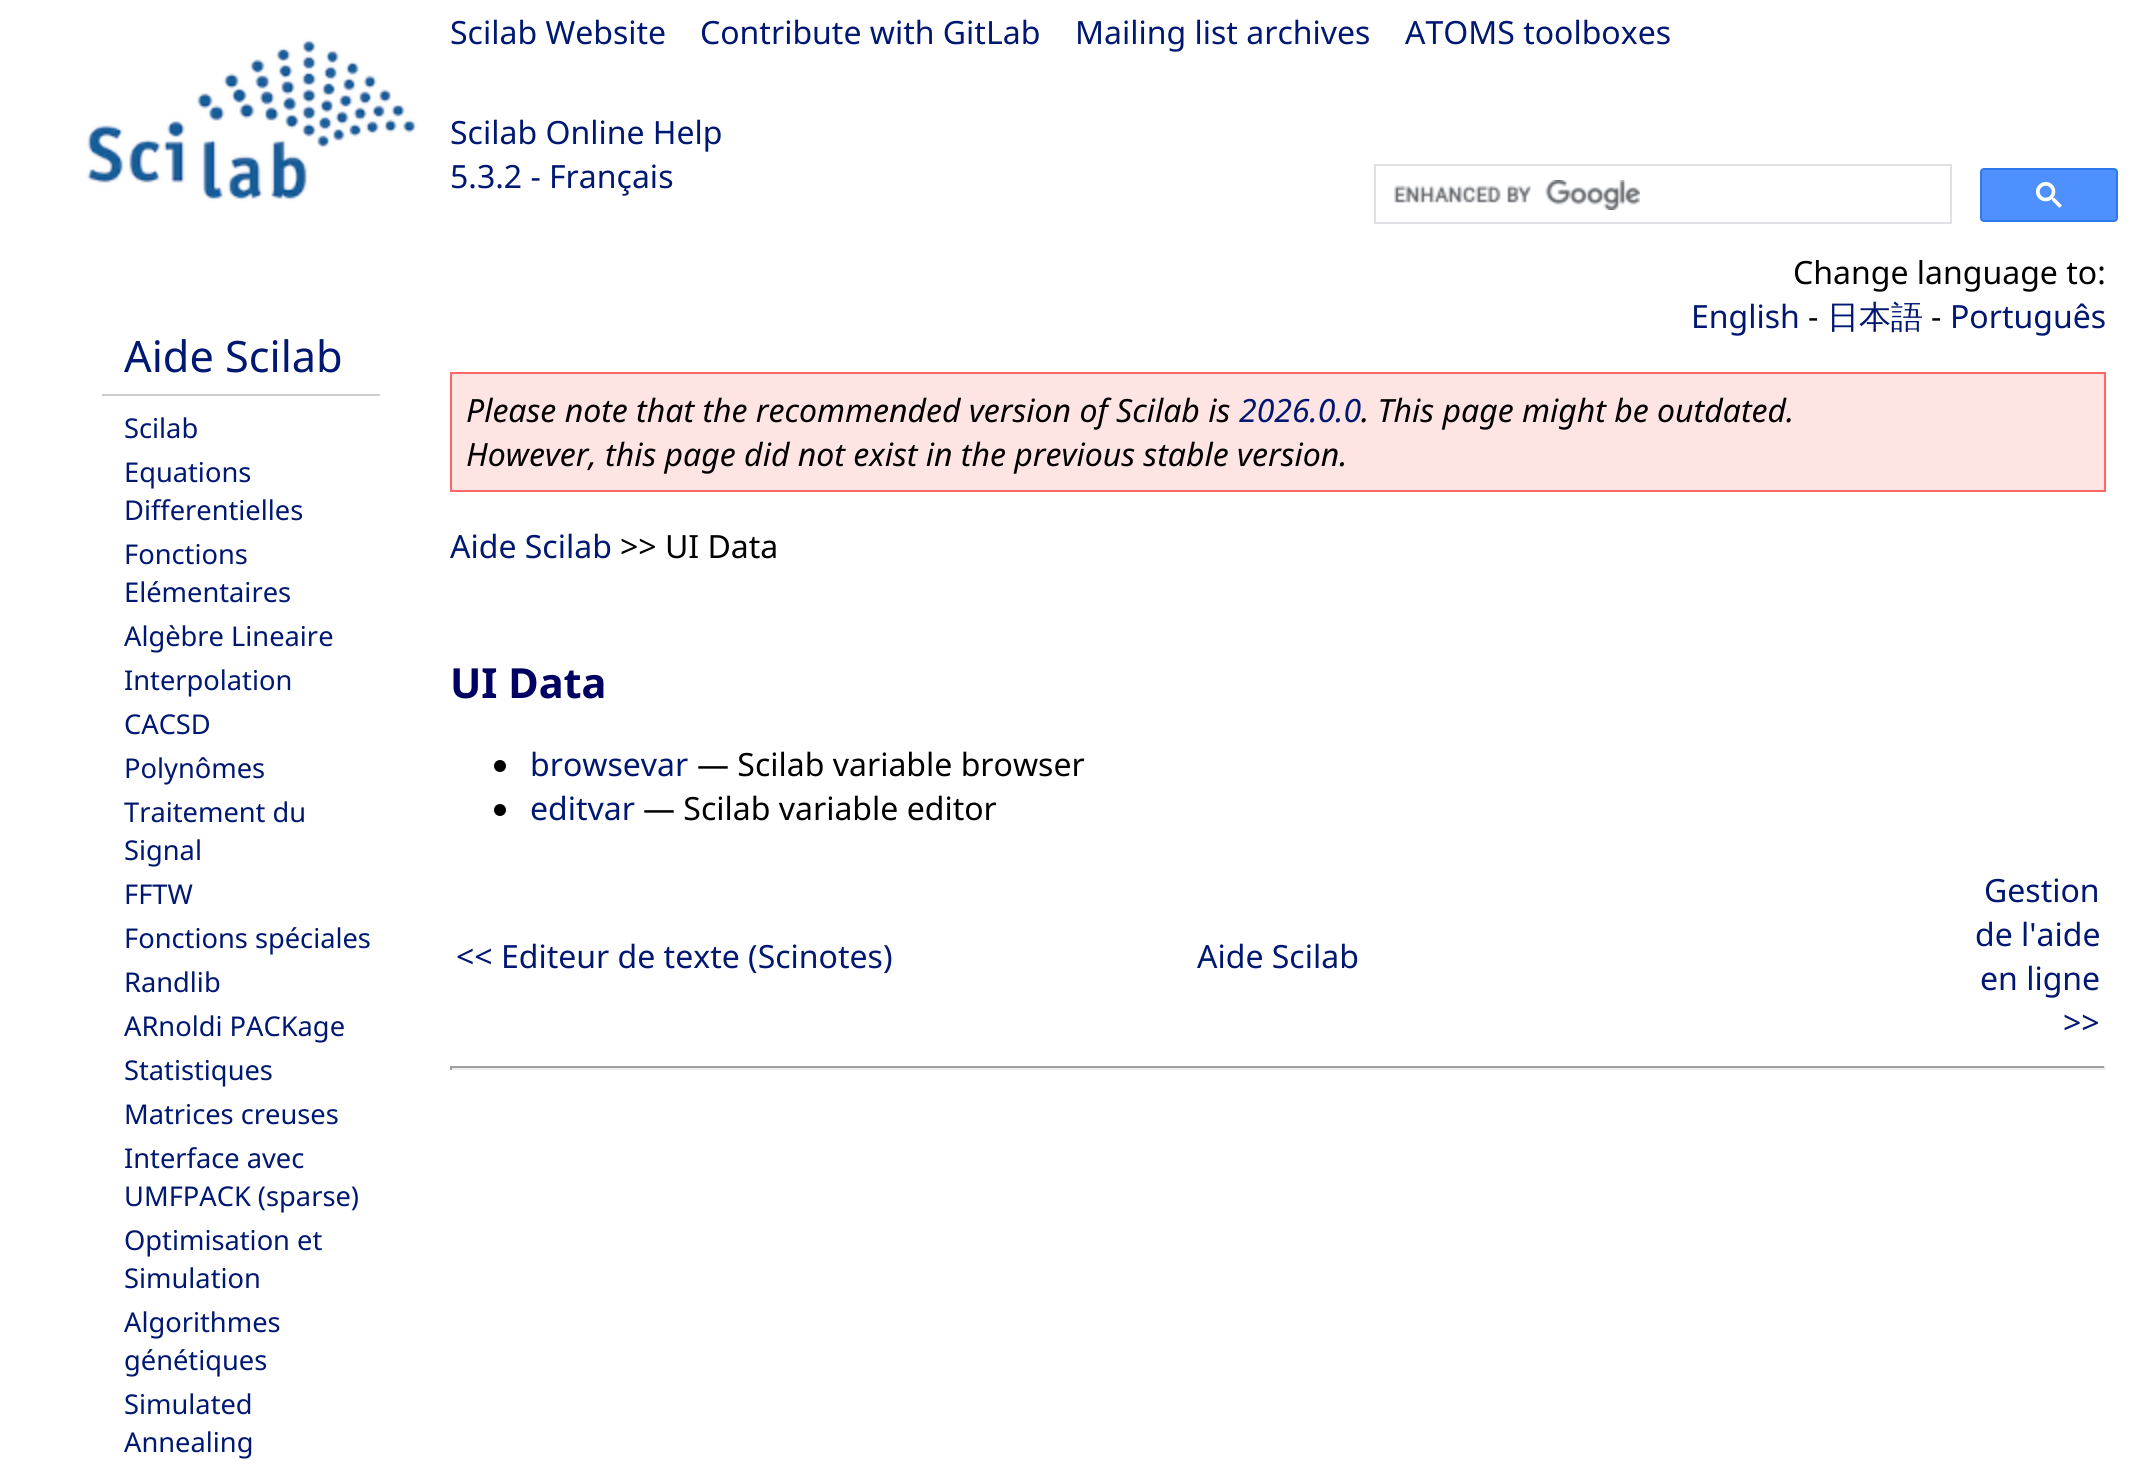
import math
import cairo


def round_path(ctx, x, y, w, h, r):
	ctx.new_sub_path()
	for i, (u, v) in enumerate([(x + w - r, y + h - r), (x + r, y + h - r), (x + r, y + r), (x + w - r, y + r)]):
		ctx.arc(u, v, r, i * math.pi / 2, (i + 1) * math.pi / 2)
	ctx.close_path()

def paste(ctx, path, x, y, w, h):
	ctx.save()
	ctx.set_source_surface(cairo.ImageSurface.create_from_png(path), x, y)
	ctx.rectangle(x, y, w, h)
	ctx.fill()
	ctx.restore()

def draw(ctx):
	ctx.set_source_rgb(1, 1, 1)
	ctx.paint()
	paste(ctx, 'media/1.png', 87, 39, 330, 162)
	ctx.select_font_face('Noto Sans')
	ctx.set_font_size(32)
	ctx.set_source_rgb(0, 0.094, 0.443)
	for x, y, s in [
		(450, 44, 'Scilab Website'),
		(700, 44, 'Contribute with GitLab'),
		(1075, 44, 'Mailing list archives'),
		(1405, 44, 'ATOMS toolboxes'),
		(450, 144, 'Scilab Online Help'),
		(450, 188, '5.3.2 - Français'),
	]:
		ctx.move_to(x, y)
		ctx.show_text(s)
	ctx.set_source_rgb(0, 0, 0)
	ctx.move_to(1793, 284)
	ctx.show_text('Change language to:')
	ctx.set_source_rgb(1, 1, 1)
	ctx.rectangle(1816, 259, 107, 1)
	ctx.fill()
	ctx.rectangle(1375, 165, 576, 58)
	ctx.set_source_rgb(0.875, 0.882, 0.898)
	ctx.stroke()
	paste(ctx, 'media/2.png', 1394, 180, 246, 30)
	ctx.set_source_rgb(0.302, 0.565, 0.996)
	round_path(ctx, 1981, 169, 136, 52, 3)
	ctx.fill_preserve()
	ctx.set_source_rgb(0.188, 0.475, 0.929)
	ctx.stroke()
	paste(ctx, 'media/3.png', 2036, 182, 26, 26)
	ctx.set_source_rgb(0.8, 0.8, 0.8)
	ctx.rectangle(102, 394, 278, 2)
	ctx.fill()
	ctx.set_font_size(43.25)
	ctx.set_source_rgb(0, 0.094, 0.443)
	ctx.move_to(124, 372)
	ctx.show_text('Aide Scilab')
	ctx.set_font_size(27.25)
	for x, y, s in [
		(124, 438, 'Scilab'),
		(124, 482, 'Equations'),
		(124, 520, 'Differentielles'),
		(124, 564, 'Fonctions'),
		(124, 602, 'Elémentaires'),
		(124, 646, 'Algèbre Lineaire'),
		(124, 690, 'Interpolation'),
		(124, 734, 'CACSD'),
		(124, 778, 'Polynômes'),
		(124, 822, 'Traitement du'),
		(124, 860, 'Signal'),
		(124, 904, 'FFTW'),
		(124, 948, 'Fonctions spéciales'),
		(124, 992, 'Randlib'),
		(124, 1036, 'ARnoldi PACKage'),
		(124, 1080, 'Statistiques'),
		(124, 1124, 'Matrices creuses'),
		(124, 1168, 'Interface avec'),
		(124, 1206, 'UMFPACK (sparse)'),
		(124, 1250, 'Optimisation et'),
		(124, 1288, 'Simulation'),
		(124, 1332, 'Algorithmes'),
		(124, 1370, 'génétiques'),
		(124, 1414, 'Simulated'),
		(124, 1452, 'Annealing'),
	]:
		ctx.move_to(x, y)
		ctx.show_text(s)
	ctx.set_font_size(32)
	ctx.move_to(1691, 328)
	ctx.show_text('English')
	ctx.set_source_rgb(0, 0, 0)
	ctx.move_to(1808, 328)
	ctx.show_text('-')
	ctx.select_font_face('WenQuanYi Zen Hei Medium')
	ctx.set_source_rgb(0, 0.094, 0.443)
	ctx.move_to(1827, 328)
	ctx.show_text('日本語')
	ctx.select_font_face('Noto Sans')
	ctx.set_source_rgb(0, 0, 0)
	ctx.move_to(1931, 328)
	ctx.show_text('-')
	ctx.set_source_rgb(0, 0.094, 0.443)
	ctx.move_to(1950, 328)
	ctx.show_text('Português')
	ctx.set_source_rgb(1, 0.894, 0.894)
	ctx.rectangle(451, 373, 1654, 118)
	ctx.fill_preserve()
	ctx.set_source_rgb(1, 0.4, 0.4)
	ctx.stroke()
	ctx.select_font_face('Noto Sans', cairo.FONT_SLANT_ITALIC)
	ctx.set_source_rgb(0, 0, 0)
	ctx.move_to(466, 422)
	ctx.show_text('Please note that the recommended version of Scilab is')
	ctx.set_source_rgb(0, 0.094, 0.443)
	ctx.move_to(1239, 422)
	ctx.show_text('2026.0.0')
	ctx.set_source_rgb(0, 0, 0)
	ctx.move_to(1361, 422)
	ctx.show_text('. This page might be outdated.')
	ctx.move_to(466, 466)
	ctx.show_text('However, this page did not exist in the previous stable version.')
	ctx.select_font_face('Noto Sans')
	ctx.set_source_rgb(0, 0.094, 0.443)
	ctx.move_to(450, 558)
	ctx.show_text('Aide Scilab')
	ctx.set_source_rgb(0, 0, 0)
	ctx.move_to(620, 558)
	ctx.show_text('>> UI Data')
	ctx.select_font_face('Noto Sans', cairo.FONT_SLANT_NORMAL, cairo.FONT_WEIGHT_BOLD)
	ctx.set_font_size(41.5)
	ctx.set_source_rgb(0, 0, 0.388)
	ctx.move_to(450, 698)
	ctx.show_text('UI Data')
	ctx.set_source_rgb(0, 0, 0)
	ctx.new_path()
	ctx.arc(500, 766, 6, 0, 2 * math.pi)
	ctx.fill()
	ctx.select_font_face('Noto Sans')
	ctx.set_font_size(32)
	ctx.set_source_rgb(0, 0.094, 0.443)
	ctx.move_to(530, 776)
	ctx.show_text('browsevar')
	ctx.set_source_rgb(0, 0, 0)
	ctx.move_to(697, 776)
	ctx.show_text('— Scilab variable browser')
	ctx.new_path()
	ctx.arc(500, 810, 6, 0, 2 * math.pi)
	ctx.fill()
	ctx.set_source_rgb(0, 0.094, 0.443)
	ctx.move_to(530, 820)
	ctx.show_text('editvar')
	ctx.set_source_rgb(0, 0, 0)
	ctx.move_to(643, 820)
	ctx.show_text('— Scilab variable editor')
	ctx.set_source_rgb(0, 0.094, 0.443)
	for x, y, s in [
		(456, 968, '<< Editeur de texte (Scinotes)'),
		(1197, 968, 'Aide Scilab'),
		(1984, 902, 'Gestion'),
		(1975, 946, 'de l\'aide'),
		(1980, 990, 'en ligne'),
		(2063, 1034, '>>'),
	]:
		ctx.move_to(x, y)
		ctx.show_text(s)
	ctx.set_source_rgb(0.624, 0.624, 0.624)
	ctx.rectangle(450, 1066, 1656, 2)
	ctx.fill()
	ctx.set_source_rgb(0.933, 0.933, 0.933)
	ctx.rectangle(2104, 1066, 2, 4)
	ctx.rectangle(450, 1068, 1656, 2)
	ctx.fill()
	ctx.set_source_rgb(0.624, 0.624, 0.624)
	ctx.rectangle(450, 1066, 2, 4)
	ctx.fill()


surface = cairo.ImageSurface(cairo.FORMAT_RGB24, 2156, 1468)
ctx = cairo.Context(surface)
options = cairo.FontOptions()
options.set_hint_metrics(cairo.HINT_METRICS_OFF)
options.set_hint_style(cairo.HINT_STYLE_NONE)
ctx.set_font_options(options)
ctx.set_miter_limit(4)
draw(ctx)
surface.write_to_png('image.png')
